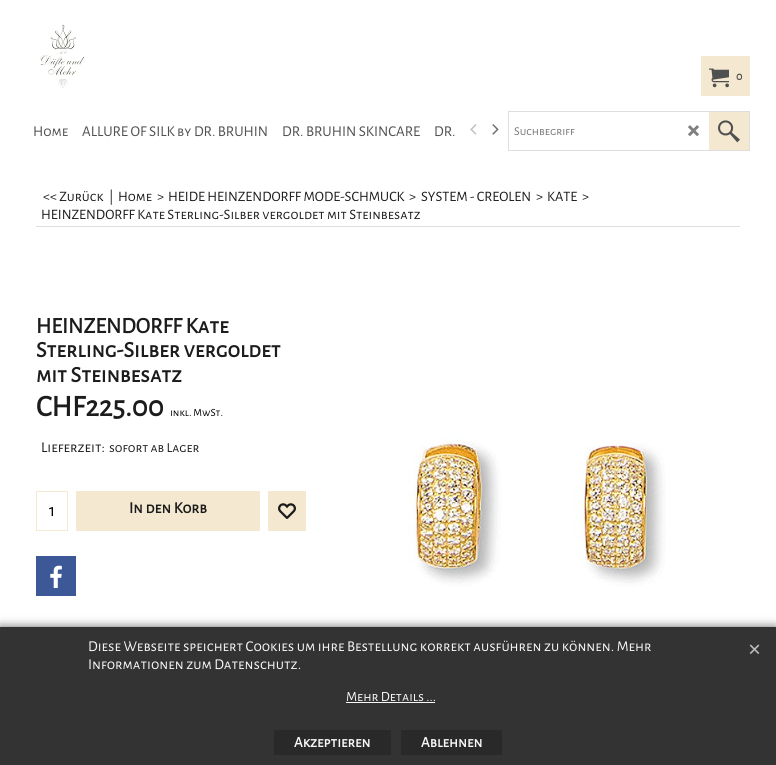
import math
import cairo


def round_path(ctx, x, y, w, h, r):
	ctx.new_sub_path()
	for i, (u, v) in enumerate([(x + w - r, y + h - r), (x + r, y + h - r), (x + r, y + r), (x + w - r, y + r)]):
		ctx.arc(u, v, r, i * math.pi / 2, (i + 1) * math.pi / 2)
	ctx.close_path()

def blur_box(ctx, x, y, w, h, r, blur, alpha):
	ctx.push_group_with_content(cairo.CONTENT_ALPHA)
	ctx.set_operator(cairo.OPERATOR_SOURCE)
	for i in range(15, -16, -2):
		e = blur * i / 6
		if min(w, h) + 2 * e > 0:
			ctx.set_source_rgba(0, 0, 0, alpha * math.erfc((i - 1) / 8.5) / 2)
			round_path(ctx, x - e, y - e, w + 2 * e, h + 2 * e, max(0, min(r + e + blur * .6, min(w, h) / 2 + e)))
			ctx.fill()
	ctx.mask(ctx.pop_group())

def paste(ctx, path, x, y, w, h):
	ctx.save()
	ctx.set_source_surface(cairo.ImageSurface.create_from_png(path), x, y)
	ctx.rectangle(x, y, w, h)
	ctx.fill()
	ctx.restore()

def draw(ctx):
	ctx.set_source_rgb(1, 1, 1)
	ctx.paint()
	paste(ctx, 'media/1.png', 40, 24, 44, 64)
	ctx.set_source_rgb(0.957, 0.914, 0.816)
	ctx.rectangle(701, 56, 49, 40)
	ctx.fill()
	paste(ctx, 'media/2.png', 709, 68, 20, 20)
	ctx.select_font_face('Alegreya Sans SC', cairo.FONT_SLANT_NORMAL, cairo.FONT_WEIGHT_BOLD)
	ctx.set_font_size(12)
	ctx.set_source_rgb(0.314, 0.314, 0.314)
	ctx.move_to(736, 80)
	ctx.show_text('0')
	ctx.select_font_face('Alegreya Sans SC')
	ctx.set_font_size(15)
	for x, y, s in [
		(33, 136, 'Home'),
		(82, 136, 'ALLURE OF SILK by DR. BRUHIN'),
		(282, 136, 'DR. BRUHIN SKINCARE'),
		(434, 136, 'DR.'),
	]:
		ctx.move_to(x, y)
		ctx.show_text(s)
	paste(ctx, 'media/3.png', 470, 124, 7, 11)
	paste(ctx, 'media/4.png', 492, 124, 7, 11)
	ctx.rectangle(508.5, 111.5, 241, 39)
	ctx.set_source_rgb(0.871, 0.871, 0.871)
	ctx.set_line_width(1)
	ctx.stroke()
	ctx.set_font_size(12)
	ctx.set_source_rgb(0.459, 0.459, 0.459)
	ctx.move_to(514, 135)
	ctx.show_text('Suchbegriff')
	paste(ctx, 'media/5.png', 688, 125, 11, 12)
	ctx.set_source_rgb(0.957, 0.914, 0.816)
	ctx.rectangle(709, 112, 40, 38)
	ctx.fill()
	paste(ctx, 'media/6.png', 718, 120, 22, 23)
	ctx.set_source_rgb(0.871, 0.871, 0.871)
	ctx.rectangle(36, 226, 704, 1)
	ctx.fill()
	ctx.set_font_size(14.4)
	ctx.set_source_rgb(0.11, 0.11, 0.11)
	for x, y, s in [
		(43, 201, '<< Zurück'),
		(109, 201, '|'),
		(118, 201, 'Home'),
		(157, 201, '>'),
		(168, 201, 'HEIDE HEINZENDORFF MODE-SCHMUCK'),
		(409, 201, '>'),
		(421, 201, 'SYSTEM - CREOLEN'),
		(536, 201, '>'),
		(547, 201, 'KATE'),
		(582, 201, '>'),
		(41, 219, 'HEINZENDORFF Kate Sterling-Silber vergoldet mit Steinbesatz'),
	]:
		ctx.move_to(x, y)
		ctx.show_text(s)
	ctx.select_font_face('Alegreya Sans SC', cairo.FONT_SLANT_NORMAL, cairo.FONT_WEIGHT_BOLD)
	ctx.set_font_size(22.4)
	for x, y, s in [
		(36, 333, 'HEINZENDORFF Kate'),
		(36, 357, 'Sterling-Silber vergoldet'),
		(36, 382, 'mit Steinbesatz'),
	]:
		ctx.move_to(x, y)
		ctx.show_text(s)
	ctx.set_font_size(30)
	ctx.move_to(36, 416)
	ctx.show_text('CHF225.00')
	ctx.select_font_face('Alegreya Sans SC')
	ctx.set_font_size(11)
	ctx.set_source_rgb(0, 0, 0)
	ctx.move_to(170, 416)
	ctx.show_text('inkl. MwSt.')
	ctx.set_font_size(15)
	ctx.set_source_rgb(0.11, 0.11, 0.11)
	ctx.move_to(41, 452)
	ctx.show_text('Lieferzeit:')
	ctx.set_font_size(13.75)
	ctx.move_to(109, 452)
	ctx.show_text('sofort ab Lager')
	ctx.set_source_rgb(0.957, 0.914, 0.816)
	ctx.rectangle(36, 491, 32, 40)
	ctx.fill()
	ctx.set_source_rgb(1, 1, 1)
	ctx.rectangle(37, 492, 30, 38)
	ctx.fill()
	ctx.set_font_size(18)
	ctx.set_source_rgb(0, 0, 0)
	ctx.move_to(49, 516)
	ctx.show_text('1')
	ctx.set_source_rgb(0.957, 0.914, 0.816)
	ctx.rectangle(76, 491, 184, 40)
	ctx.fill()
	ctx.select_font_face('Alegreya Sans SC', cairo.FONT_SLANT_NORMAL, cairo.FONT_WEIGHT_BOLD)
	ctx.set_font_size(16)
	ctx.set_source_rgb(0.11, 0.11, 0.11)
	ctx.move_to(129, 513)
	ctx.show_text('In den Korb')
	ctx.set_source_rgb(0.957, 0.914, 0.816)
	ctx.rectangle(268, 491, 38, 40)
	ctx.fill()
	paste(ctx, 'media/7.png', 278, 503, 18, 16)
	ctx.set_source_rgb(0.235, 0.345, 0.592)
	ctx.rectangle(36, 556, 40, 40)
	ctx.fill()
	paste(ctx, 'media/8.png', 50, 565, 12, 23)
	paste(ctx, 'media/9.png', 407, 434, 259, 153)
	ctx.set_source_rgb(0.4, 0.4, 0.4)
	blur_box(ctx, 0, 627, 776, 138, 0, 5, 1)
	ctx.set_source_rgb(0.2, 0.2, 0.2)
	ctx.rectangle(0, 627, 776, 138)
	ctx.fill()
	ctx.select_font_face('Alegreya Sans SC')
	ctx.set_font_size(15)
	ctx.set_source_rgb(0.969, 0.969, 0.969)
	ctx.move_to(88, 651)
	ctx.show_text('Diese Webseite speichert Cookies um ihre Bestellung korrekt ausführen zu können. Mehr')
	ctx.move_to(88, 669)
	ctx.show_text('Informationen zum Datenschutz.')
	ctx.set_font_size(14)
	ctx.move_to(346, 701)
	ctx.show_text('Mehr Details ...')
	ctx.rectangle(346, 702, 89, 1)
	ctx.fill()
	paste(ctx, 'media/10.png', 749, 644, 11, 10)
	ctx.set_source_rgb(0.161, 0.161, 0.161)
	ctx.rectangle(274, 730, 117, 25)
	ctx.fill()
	ctx.select_font_face('Alegreya Sans SC', cairo.FONT_SLANT_NORMAL, cairo.FONT_WEIGHT_BOLD)
	ctx.set_font_size(15)
	ctx.set_source_rgb(0.969, 0.969, 0.969)
	ctx.move_to(294, 747)
	ctx.show_text('Akzeptieren')
	ctx.set_source_rgb(0.161, 0.161, 0.161)
	ctx.rectangle(401, 730, 101, 25)
	ctx.fill()
	ctx.set_source_rgb(0.969, 0.969, 0.969)
	ctx.move_to(421, 747)
	ctx.show_text('Ablehnen')


surface = cairo.ImageSurface(cairo.FORMAT_RGB24, 776, 765)
ctx = cairo.Context(surface)
options = cairo.FontOptions()
options.set_hint_metrics(cairo.HINT_METRICS_OFF)
options.set_hint_style(cairo.HINT_STYLE_NONE)
ctx.set_font_options(options)
ctx.set_miter_limit(4)
draw(ctx)
surface.write_to_png('image.png')
